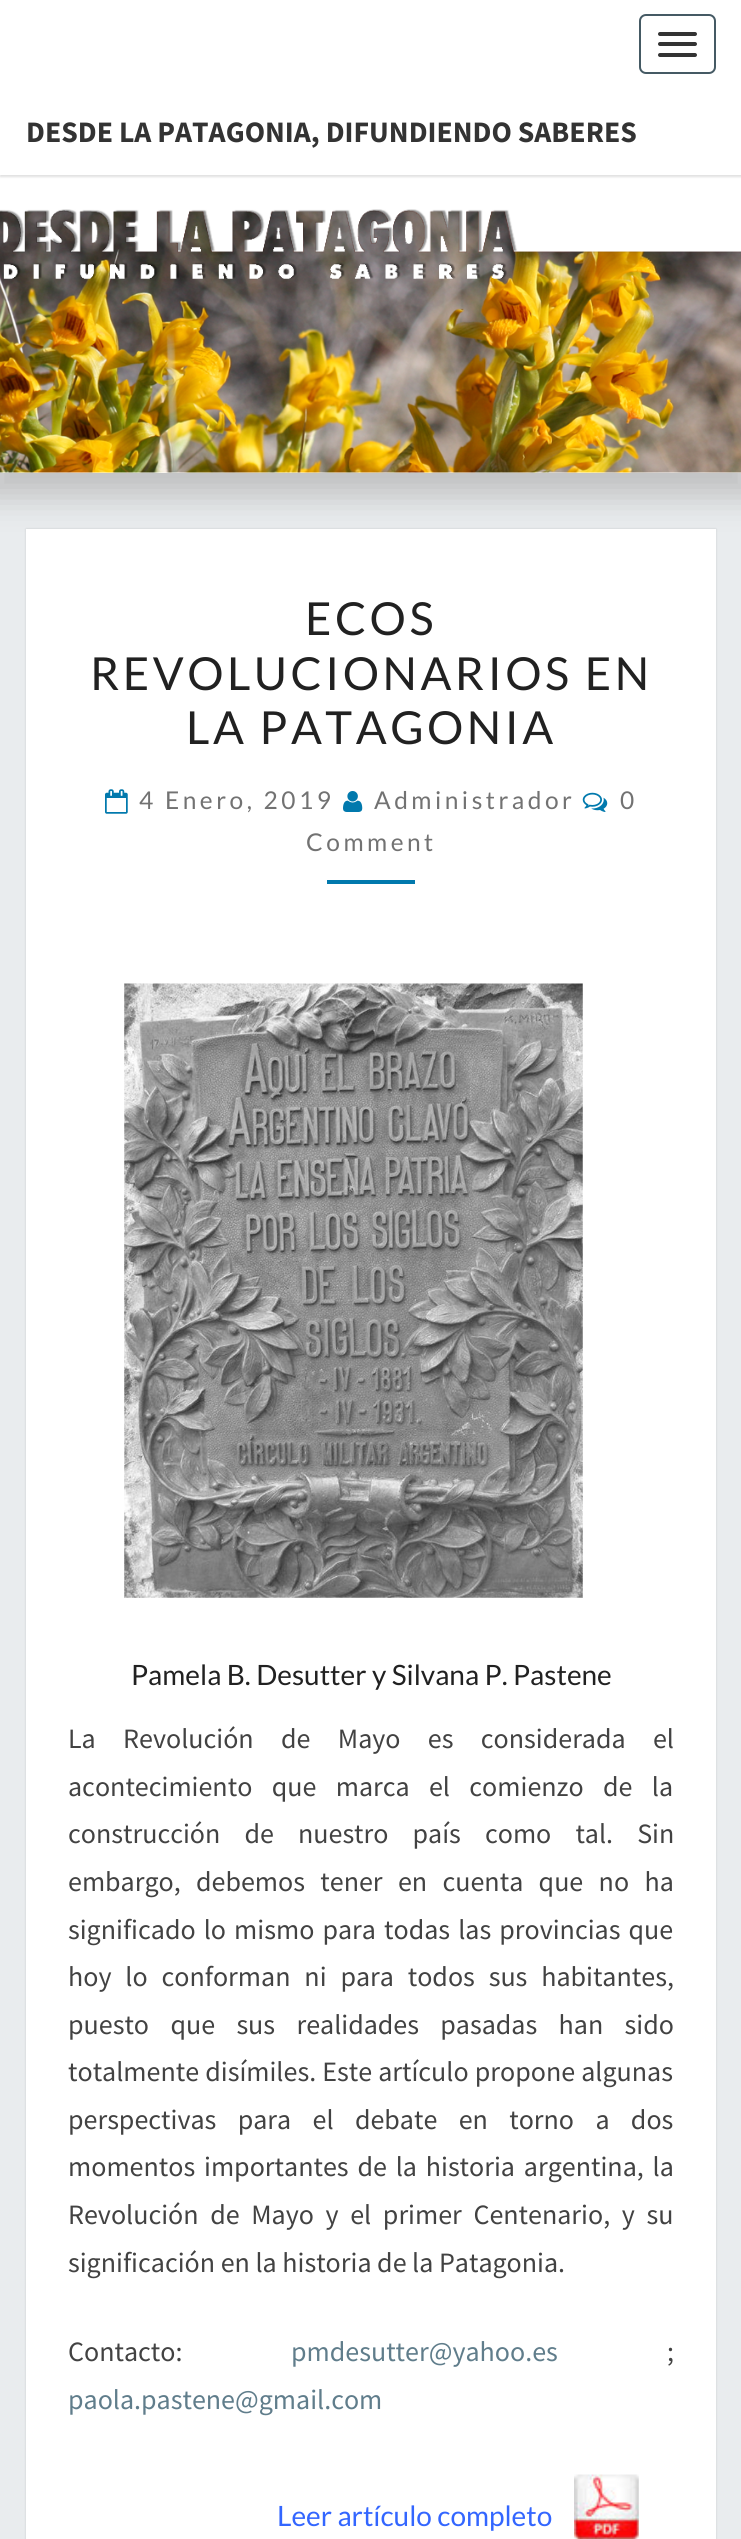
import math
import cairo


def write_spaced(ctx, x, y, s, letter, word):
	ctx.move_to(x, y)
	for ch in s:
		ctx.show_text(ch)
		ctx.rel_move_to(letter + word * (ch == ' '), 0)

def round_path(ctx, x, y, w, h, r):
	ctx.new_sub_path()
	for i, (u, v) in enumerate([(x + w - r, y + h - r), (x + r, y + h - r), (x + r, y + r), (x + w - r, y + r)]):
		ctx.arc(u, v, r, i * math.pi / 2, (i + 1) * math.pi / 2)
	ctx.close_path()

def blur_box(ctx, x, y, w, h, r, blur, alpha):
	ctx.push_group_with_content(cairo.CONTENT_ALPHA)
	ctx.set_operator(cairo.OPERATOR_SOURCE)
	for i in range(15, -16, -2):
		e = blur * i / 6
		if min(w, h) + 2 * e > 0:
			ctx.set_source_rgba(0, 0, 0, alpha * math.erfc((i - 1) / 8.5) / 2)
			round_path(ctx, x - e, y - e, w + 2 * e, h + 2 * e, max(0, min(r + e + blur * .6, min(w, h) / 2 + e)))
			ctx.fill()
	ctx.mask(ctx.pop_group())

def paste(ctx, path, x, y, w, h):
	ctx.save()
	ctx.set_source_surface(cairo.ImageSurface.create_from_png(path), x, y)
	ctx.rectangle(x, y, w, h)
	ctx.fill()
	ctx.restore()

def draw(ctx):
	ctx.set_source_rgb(0.914, 0.922, 0.933)
	ctx.paint()
	ctx.set_source_rgb(0.702, 0.702, 0.702)
	blur_box(ctx, -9, 182, 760, 315, 0, 16, 0.76)
	ctx.set_source_rgb(1, 1, 1)
	ctx.rectangle(0, 175, 741, 298)
	ctx.fill()
	ctx.set_source_rgb(0.392, 0.392, 0.392)
	blur_box(ctx, 0, 2, 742, 175, 0, 1, 0.2)
	ctx.set_source_rgb(1, 1, 1)
	ctx.rectangle(0, 0, 741, 175)
	ctx.fill()
	round_path(ctx, 640, 15, 75, 58, 6)
	ctx.set_source_rgb(0.271, 0.353, 0.392)
	ctx.stroke()
	ctx.set_source_rgb(0.2, 0.2, 0.2)
	round_path(ctx, 658, 32, 39, 4, 2)
	ctx.fill()
	round_path(ctx, 658, 42, 39, 4, 2)
	ctx.fill()
	round_path(ctx, 658, 53, 39, 4, 2)
	ctx.fill()
	ctx.select_font_face('Source Sans Pro', cairo.FONT_SLANT_NORMAL, cairo.FONT_WEIGHT_BOLD)
	ctx.set_font_size(29.75)
	ctx.move_to(26, 142)
	ctx.show_text('DESDE LA PATAGONIA, DIFUNDIENDO SABERES')
	paste(ctx, 'media/1.png', 0, 209, 741, 264)
	ctx.set_source_rgb(0, 0, 0)
	blur_box(ctx, 26, 529, 690, 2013, 0, 1, 0.15)
	ctx.set_source_rgb(1, 1, 1)
	ctx.rectangle(26, 529, 690, 2010)
	ctx.fill()
	ctx.select_font_face('Lato')
	ctx.set_font_size(45.5)
	ctx.set_source_rgb(0.129, 0.129, 0.129)
	for x, y, s in [
		(305, 635, 'ECOS'),
		(90, 690, 'REVOLUCIONARIOS EN'),
		(186, 744, 'LA PATAGONIA'),
	]:
		write_spaced(ctx, x, y, s, 3.5, 0)
	paste(ctx, 'media/2.png', 105, 789, 23, 25)
	ctx.set_font_size(24.5)
	ctx.set_source_rgb(0.447, 0.447, 0.447)
	write_spaced(ctx, 139, 809, '4 Enero, 2019', 3.5, 0)
	paste(ctx, 'media/3.png', 343, 791, 20, 21)
	write_spaced(ctx, 374, 809, 'Administrador', 3.5, 0)
	paste(ctx, 'media/4.png', 582, 792, 26, 20)
	write_spaced(ctx, 620, 809, '0', 3.5, 0)
	write_spaced(ctx, 306, 851, 'Comment', 3.5, 0)
	ctx.set_source_rgb(0.004, 0.475, 0.678)
	ctx.rectangle(327, 880, 88, 4)
	ctx.fill()
	paste(ctx, 'media/5.png', 124, 983, 459, 615)
	ctx.set_font_size(28)
	ctx.set_source_rgb(0.129, 0.129, 0.129)
	ctx.move_to(131, 1685)
	ctx.show_text('Pamela B. Desutter y Silvana P. Pastene')
	ctx.select_font_face('Source Sans Pro')
	ctx.set_source_rgb(0.259, 0.259, 0.259)
	write_spaced(ctx, 68, 1748, 'La Revolución de Mayo es considerada el', 0, 21.75)
	write_spaced(ctx, 68, 1796, 'acontecimiento que marca el comienzo de la', 0, 13.75)
	write_spaced(ctx, 68, 1843, 'construcción de nuestro país como tal. Sin', 0, 18.5)
	write_spaced(ctx, 68, 1891, 'embargo, debemos tener en cuenta que no ha', 0, 9.75)
	write_spaced(ctx, 68, 1939, 'significado lo mismo para todas las provincias que', 0, 2.5)
	write_spaced(ctx, 68, 1986, 'hoy lo conforman ni para todos sus habitantes,', 0, 8.25)
	write_spaced(ctx, 68, 2034, 'puesto que sus realidades pasadas han sido', 0, 15.75)
	write_spaced(ctx, 68, 2081, 'totalmente disímiles. Este artículo propone algunas', 0, 0.5)
	write_spaced(ctx, 68, 2129, 'perspectivas para el debate en torno a dos', 0, 15.75)
	write_spaced(ctx, 68, 2176, 'momentos importantes de la historia argentina, la', 0, 3.25)
	write_spaced(ctx, 68, 2224, 'Revolución de Mayo y el primer Centenario, y su', 0, 6)
	ctx.move_to(68, 2272)
	ctx.show_text('significación en la historia de la Patagonia.')
	ctx.move_to(68, 2361)
	ctx.show_text('Contacto:')
	ctx.set_source_rgb(0.376, 0.49, 0.545)
	ctx.move_to(291, 2361)
	ctx.show_text('pmdesutter@yahoo.es')
	ctx.set_source_rgb(0.259, 0.259, 0.259)
	ctx.move_to(667, 2361)
	ctx.show_text(';')
	ctx.set_source_rgb(0.376, 0.49, 0.545)
	ctx.move_to(68, 2409)
	ctx.show_text('paola.pastene@gmail.com')
	ctx.select_font_face('Lato')
	ctx.set_source_rgb(0.2, 0.4, 1)
	ctx.move_to(277, 2526)
	ctx.show_text('Leer artículo completo')
	paste(ctx, 'media/6.png', 574, 2474, 65, 65)


surface = cairo.ImageSurface(cairo.FORMAT_RGB24, 741, 2539)
ctx = cairo.Context(surface)
options = cairo.FontOptions()
options.set_hint_metrics(cairo.HINT_METRICS_OFF)
options.set_hint_style(cairo.HINT_STYLE_NONE)
ctx.set_font_options(options)
ctx.set_miter_limit(4)
draw(ctx)
surface.write_to_png('image.png')
